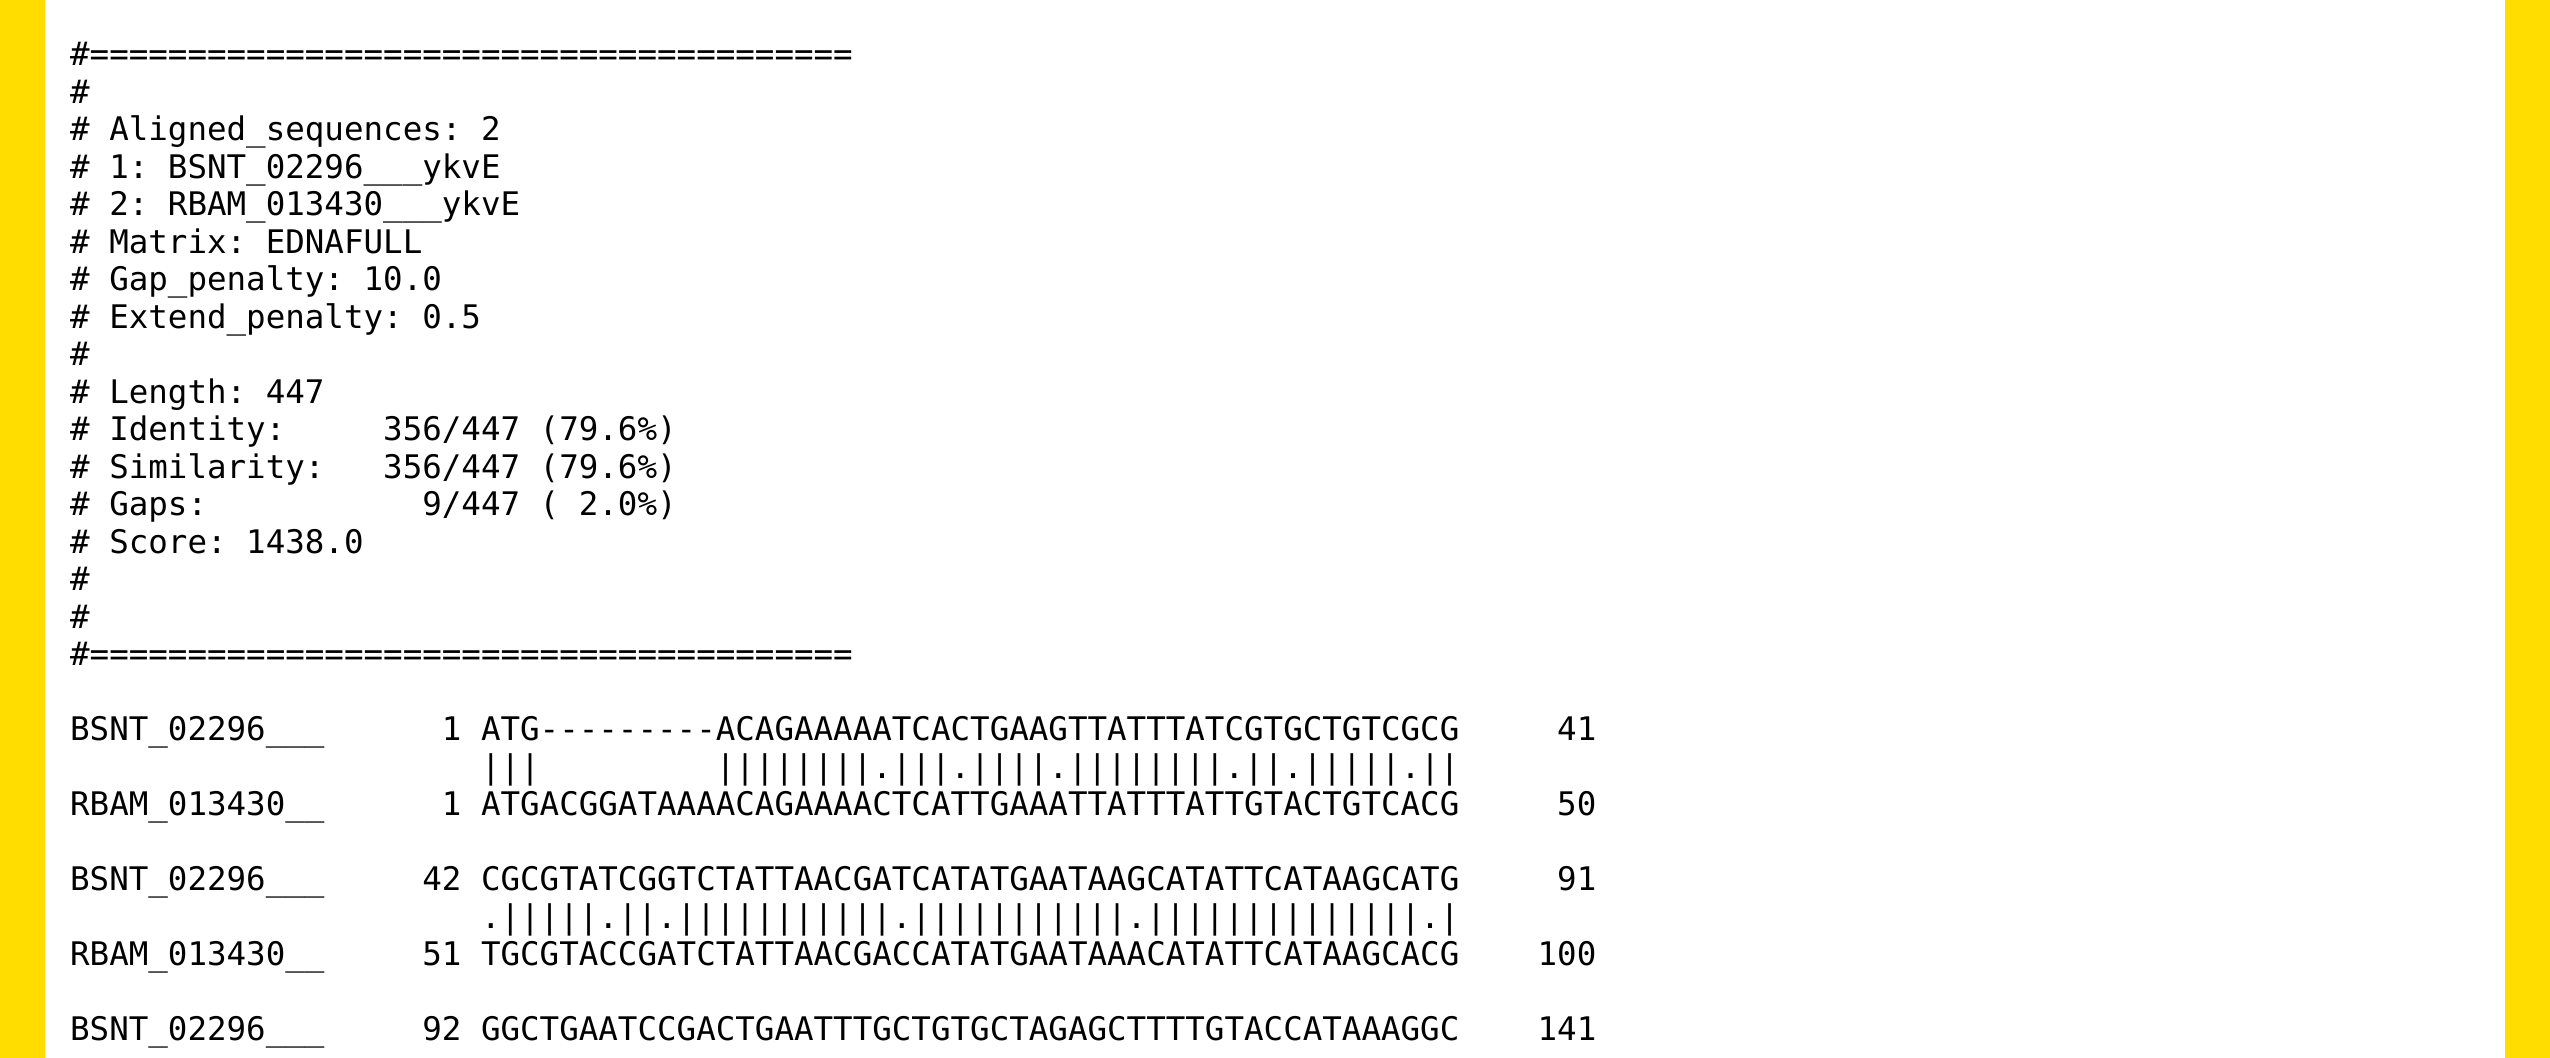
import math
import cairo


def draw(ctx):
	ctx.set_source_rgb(1, 0.867, 0)
	ctx.paint()
	ctx.set_source_rgb(1, 1, 1)
	ctx.rectangle(45, 0, 2460, 1058)
	ctx.fill()
	ctx.select_font_face('DejaVu Sans Mono')
	ctx.set_font_size(32.5)
	ctx.set_source_rgb(0, 0, 0)
	for x, y, s in [
		(70, 65, '#======================================='),
		(70, 103, '#'),
		(70, 140, '# Aligned_sequences: 2'),
		(70, 178, '# 1: BSNT_02296___ykvE'),
		(70, 215, '# 2: RBAM_013430___ykvE'),
		(70, 253, '# Matrix: EDNAFULL'),
		(70, 290, '# Gap_penalty: 10.0'),
		(70, 328, '# Extend_penalty: 0.5'),
		(70, 365, '#'),
		(70, 403, '# Length: 447'),
		(70, 440, '# Identity:     356/447 (79.6%)'),
		(70, 478, '# Similarity:   356/447 (79.6%)'),
		(70, 515, '# Gaps:           9/447 ( 2.0%)'),
		(70, 553, '# Score: 1438.0'),
		(70, 590, '#'),
		(70, 628, '#'),
		(70, 665, '#======================================='),
		(70, 740, 'BSNT_02296___      1 ATG---------ACAGAAAAATCACTGAAGTTATTTATCGTGCTGTCGCG     41'),
		(481, 778, '|||         ||||||||.|||.||||.||||||||.||.|||||.||'),
		(70, 815, 'RBAM_013430__      1 ATGACGGATAAAACAGAAAACTCATTGAAATTATTTATTGTACTGTCACG     50'),
		(70, 890, 'BSNT_02296___     42 CGCGTATCGGTCTATTAACGATCATATGAATAAGCATATTCATAAGCATG     91'),
		(481, 928, '.|||||.||.|||||||||||.|||||||||||.||||||||||||||.|'),
		(70, 965, 'RBAM_013430__     51 TGCGTACCGATCTATTAACGACCATATGAATAAACATATTCATAAGCACG    100'),
		(70, 1040, 'BSNT_02296___     92 GGCTGAATCCGACTGAATTTGCTGTGCTAGAGCTTTTGTACCATAAAGGC    141'),
	]:
		ctx.move_to(x, y)
		ctx.show_text(s)


surface = cairo.ImageSurface(cairo.FORMAT_RGB24, 2550, 1058)
ctx = cairo.Context(surface)
options = cairo.FontOptions()
options.set_hint_metrics(cairo.HINT_METRICS_OFF)
options.set_hint_style(cairo.HINT_STYLE_NONE)
ctx.set_font_options(options)
ctx.set_miter_limit(4)
draw(ctx)
surface.write_to_png('image.png')
